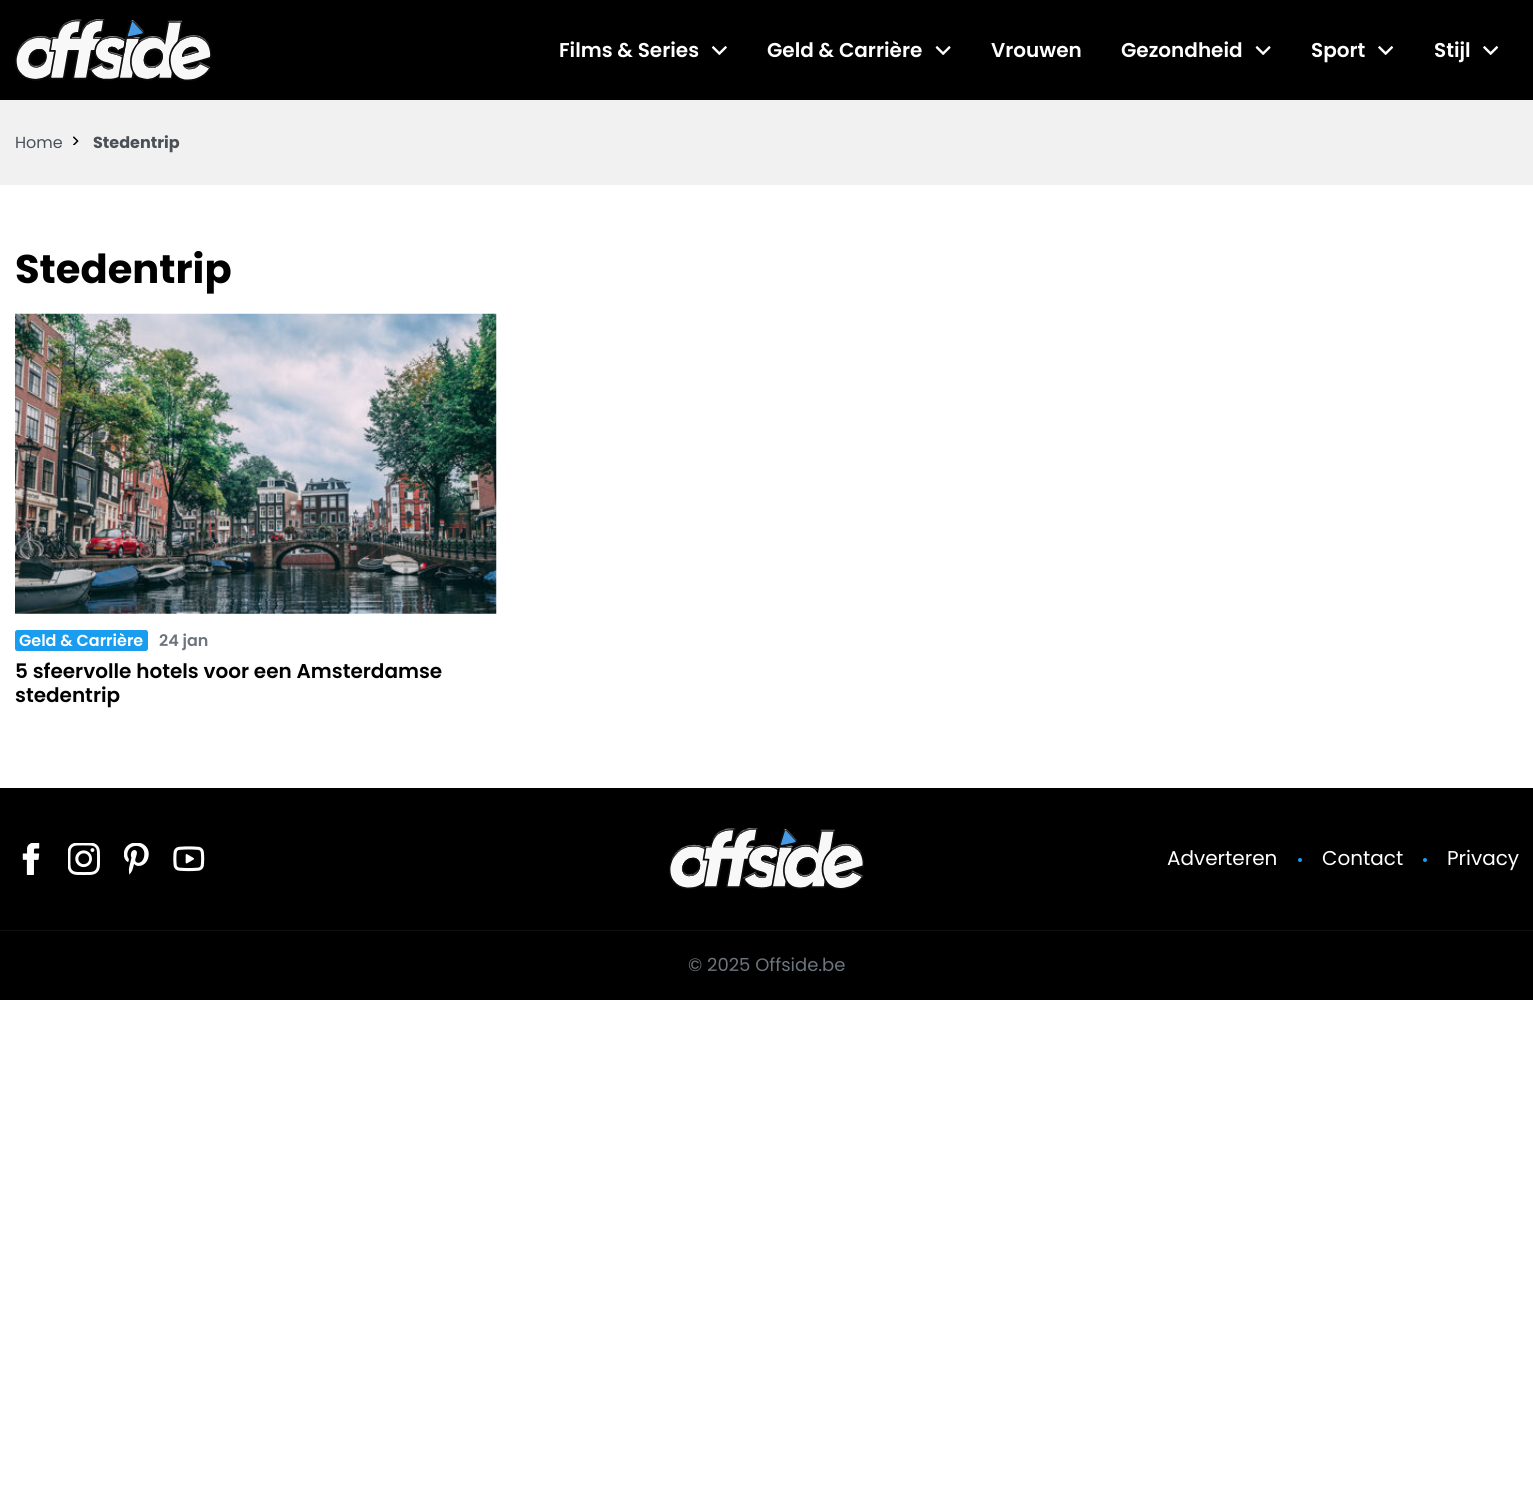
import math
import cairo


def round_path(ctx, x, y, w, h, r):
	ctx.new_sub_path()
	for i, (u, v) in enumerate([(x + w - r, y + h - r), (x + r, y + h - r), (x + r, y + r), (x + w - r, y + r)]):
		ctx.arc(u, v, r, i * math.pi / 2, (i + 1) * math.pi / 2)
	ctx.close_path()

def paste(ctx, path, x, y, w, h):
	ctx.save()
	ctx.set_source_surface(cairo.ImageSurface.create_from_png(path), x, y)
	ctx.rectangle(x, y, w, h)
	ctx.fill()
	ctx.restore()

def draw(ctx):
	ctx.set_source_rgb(1, 1, 1)
	ctx.paint()
	ctx.set_source_rgb(0, 0, 0)
	ctx.rectangle(0, 0, 1533, 100)
	ctx.fill()
	paste(ctx, 'media/1.png', 15, 19, 197, 62)
	ctx.select_font_face('Poppins SemiBold')
	ctx.set_font_size(20)
	ctx.set_source_rgb(1, 1, 1)
	ctx.move_to(559, 57)
	ctx.show_text('Films & Series')
	paste(ctx, 'media/2.png', 711, 46, 16, 9)
	ctx.move_to(767, 57)
	ctx.show_text('Geld & Carrière')
	paste(ctx, 'media/3.png', 935, 46, 16, 9)
	ctx.move_to(991, 57)
	ctx.show_text('Vrouwen')
	ctx.move_to(1121, 57)
	ctx.show_text('Gezondheid')
	paste(ctx, 'media/3.png', 1255, 46, 16, 9)
	ctx.move_to(1311, 57)
	ctx.show_text('Sport')
	paste(ctx, 'media/4.png', 1378, 46, 16, 9)
	ctx.move_to(1434, 57)
	ctx.show_text('Stijl')
	paste(ctx, 'media/4.png', 1483, 46, 16, 9)
	ctx.set_source_rgb(0.945, 0.945, 0.945)
	ctx.rectangle(0, 100, 1533, 85)
	ctx.fill()
	ctx.select_font_face('Poppins')
	ctx.set_font_size(16)
	ctx.set_source_rgb(0.286, 0.314, 0.341)
	ctx.move_to(15, 148)
	ctx.show_text('Home')
	paste(ctx, 'media/5.png', 73, 136, 6, 9)
	ctx.select_font_face('Poppins', cairo.FONT_SLANT_NORMAL, cairo.FONT_WEIGHT_BOLD)
	ctx.move_to(93, 148)
	ctx.show_text('Stedentrip')
	ctx.set_font_size(40)
	ctx.set_source_rgb(0, 0, 0)
	ctx.move_to(15, 283)
	ctx.show_text('Stedentrip')
	paste(ctx, 'media/6.png', 15, 313, 482, 301)
	ctx.set_source_rgb(0.102, 0.616, 0.937)
	round_path(ctx, 15, 630, 133, 21, 2.5)
	ctx.fill()
	ctx.select_font_face('Poppins SemiBold')
	ctx.set_font_size(16)
	ctx.set_source_rgb(1, 1, 1)
	ctx.move_to(19, 646)
	ctx.show_text('Geld & Carrière')
	ctx.set_source_rgb(0.424, 0.459, 0.49)
	ctx.move_to(159, 646)
	ctx.show_text('24 jan')
	ctx.set_font_size(20)
	ctx.set_source_rgb(0, 0, 0)
	ctx.move_to(15, 678)
	ctx.show_text('5 sfeervolle hotels voor een Amsterdamse')
	ctx.move_to(15, 702)
	ctx.show_text('stedentrip')
	ctx.rectangle(0, 788, 1533, 142)
	ctx.fill()
	paste(ctx, 'media/7.png', 22, 843, 18, 32)
	paste(ctx, 'media/8.png', 68, 843, 32, 32)
	paste(ctx, 'media/9.png', 124, 843, 25, 32)
	paste(ctx, 'media/10.png', 173, 846, 32, 26)
	paste(ctx, 'media/11.png', 669, 828, 195, 62)
	ctx.select_font_face('Poppins')
	ctx.set_source_rgb(1, 1, 1)
	ctx.move_to(1167, 865)
	ctx.show_text('Adverteren')
	ctx.set_source_rgb(0.102, 0.616, 0.937)
	ctx.new_path()
	ctx.arc(1300, 860, 2, 0, 2 * math.pi)
	ctx.fill()
	ctx.set_source_rgb(1, 1, 1)
	ctx.move_to(1322, 865)
	ctx.show_text('Contact')
	ctx.set_source_rgb(0.102, 0.616, 0.937)
	ctx.new_path()
	ctx.arc(1425, 860, 2, 0, 2 * math.pi)
	ctx.fill()
	ctx.set_source_rgb(1, 1, 1)
	ctx.move_to(1447, 865)
	ctx.show_text('Privacy')
	ctx.set_source_rgb(0, 0, 0)
	ctx.rectangle(0, 931, 1533, 69)
	ctx.fill()
	ctx.set_source_rgb(0.059, 0.059, 0.059)
	ctx.rectangle(0, 930, 1533, 1)
	ctx.fill()
	ctx.set_font_size(18)
	ctx.set_source_rgb(0.424, 0.459, 0.49)
	ctx.move_to(688, 971)
	ctx.show_text('© 2025 Offside.be')


surface = cairo.ImageSurface(cairo.FORMAT_RGB24, 1533, 1506)
ctx = cairo.Context(surface)
options = cairo.FontOptions()
options.set_hint_metrics(cairo.HINT_METRICS_OFF)
options.set_hint_style(cairo.HINT_STYLE_NONE)
ctx.set_font_options(options)
ctx.set_miter_limit(4)
draw(ctx)
surface.write_to_png('image.png')
